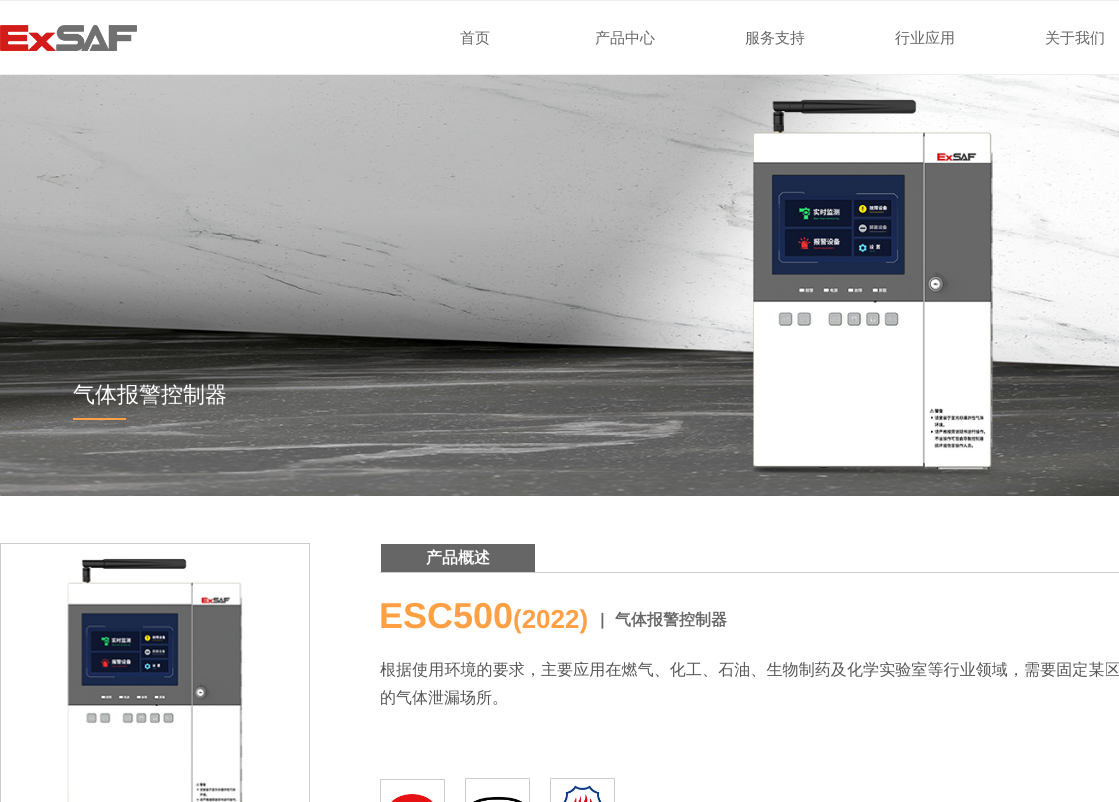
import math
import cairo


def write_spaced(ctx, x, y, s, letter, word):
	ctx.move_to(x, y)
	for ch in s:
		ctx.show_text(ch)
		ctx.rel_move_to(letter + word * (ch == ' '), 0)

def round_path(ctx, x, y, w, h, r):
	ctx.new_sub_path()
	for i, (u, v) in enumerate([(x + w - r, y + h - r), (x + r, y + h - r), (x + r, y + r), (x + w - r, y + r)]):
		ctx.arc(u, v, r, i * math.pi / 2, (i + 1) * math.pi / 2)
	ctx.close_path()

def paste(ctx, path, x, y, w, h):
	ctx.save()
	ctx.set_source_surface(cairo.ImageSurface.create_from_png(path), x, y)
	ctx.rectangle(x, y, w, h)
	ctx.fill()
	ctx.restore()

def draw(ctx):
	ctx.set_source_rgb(1, 1, 1)
	ctx.paint()
	ctx.set_source_rgb(0.933, 0.933, 0.933)
	ctx.rectangle(0, 0, 1119, 1)
	ctx.fill()
	ctx.rectangle(0, 74, 1119, 1)
	ctx.fill()
	paste(ctx, 'media/1.png', 0, 25, 137, 26)
	ctx.select_font_face('WenQuanYi Zen Hei Medium')
	ctx.set_font_size(15)
	ctx.set_source_rgb(0.4, 0.4, 0.4)
	for x, y, s in [
		(460, 43, '首页'),
		(595, 43, '产品中心'),
		(745, 43, '服务支持'),
		(895, 43, '行业应用'),
		(1045, 43, '关于我们'),
	]:
		ctx.move_to(x, y)
		ctx.show_text(s)
	paste(ctx, 'media/2.png', 0, 75, 1119, 421)
	ctx.set_font_size(22)
	ctx.set_source_rgb(1, 1, 1)
	ctx.move_to(73, 402)
	ctx.show_text('气体报警控制器')
	ctx.set_source_rgb(1, 0.627, 0.267)
	ctx.rectangle(73, 418, 53, 2)
	ctx.fill()
	ctx.rectangle(0.5, 543.5, 309, 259)
	ctx.set_source_rgb(0.8, 0.8, 0.8)
	ctx.set_line_width(1)
	ctx.stroke()
	paste(ctx, 'media/3.png', 67, 558, 176, 244)
	ctx.rectangle(380, 572, 739, 1)
	ctx.fill()
	ctx.set_source_rgb(0.4, 0.4, 0.4)
	ctx.rectangle(381, 544, 154, 28)
	ctx.fill()
	ctx.select_font_face('WenQuanYi Zen Hei', cairo.FONT_SLANT_NORMAL, cairo.FONT_WEIGHT_BOLD)
	ctx.set_font_size(16)
	ctx.set_source_rgb(1, 1, 1)
	ctx.move_to(426, 563)
	ctx.show_text('产品概述')
	ctx.select_font_face('Liberation Sans', cairo.FONT_SLANT_NORMAL, cairo.FONT_WEIGHT_BOLD)
	ctx.set_font_size(36)
	ctx.set_source_rgb(1, 0.627, 0.267)
	ctx.move_to(379, 628)
	ctx.show_text('ESC500')
	ctx.set_font_size(26)
	ctx.move_to(513, 628)
	ctx.show_text('(2022)')
	ctx.select_font_face('Noto Sans', cairo.FONT_SLANT_NORMAL, cairo.FONT_WEIGHT_BOLD)
	ctx.set_font_size(16)
	ctx.set_source_rgb(0.4, 0.4, 0.4)
	ctx.move_to(598, 625)
	ctx.show_text('|')
	ctx.select_font_face('WenQuanYi Zen Hei', cairo.FONT_SLANT_NORMAL, cairo.FONT_WEIGHT_BOLD)
	ctx.move_to(615, 625)
	ctx.show_text('气体报警控制器')
	ctx.select_font_face('WenQuanYi Zen Hei Medium')
	ctx.set_source_rgb(0.333, 0.333, 0.333)
	write_spaced(ctx, 380, 675, '根据使用环境的要求，主要应用在燃气、化工、石油、生物制药及化学实验室等行业领域，需要固定某区', 0.1, 0)
	ctx.move_to(380, 703)
	ctx.show_text('的气体泄漏场所。')
	round_path(ctx, 380.5, 779.5, 64, 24, 0.5)
	ctx.set_source_rgb(0.8, 0.8, 0.8)
	ctx.stroke()
	paste(ctx, 'media/4.png', 391, 794, 42, 8)
	round_path(ctx, 465.5, 778.5, 64, 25, 0.5)
	ctx.stroke()
	paste(ctx, 'media/5.png', 473, 796, 49, 6)
	round_path(ctx, 550.5, 778.5, 64, 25, 0.5)
	ctx.stroke()
	paste(ctx, 'media/6.png', 563, 785, 39, 17)


surface = cairo.ImageSurface(cairo.FORMAT_RGB24, 1119, 802)
ctx = cairo.Context(surface)
options = cairo.FontOptions()
options.set_hint_metrics(cairo.HINT_METRICS_OFF)
options.set_hint_style(cairo.HINT_STYLE_NONE)
ctx.set_font_options(options)
ctx.set_miter_limit(4)
draw(ctx)
surface.write_to_png('image.png')
